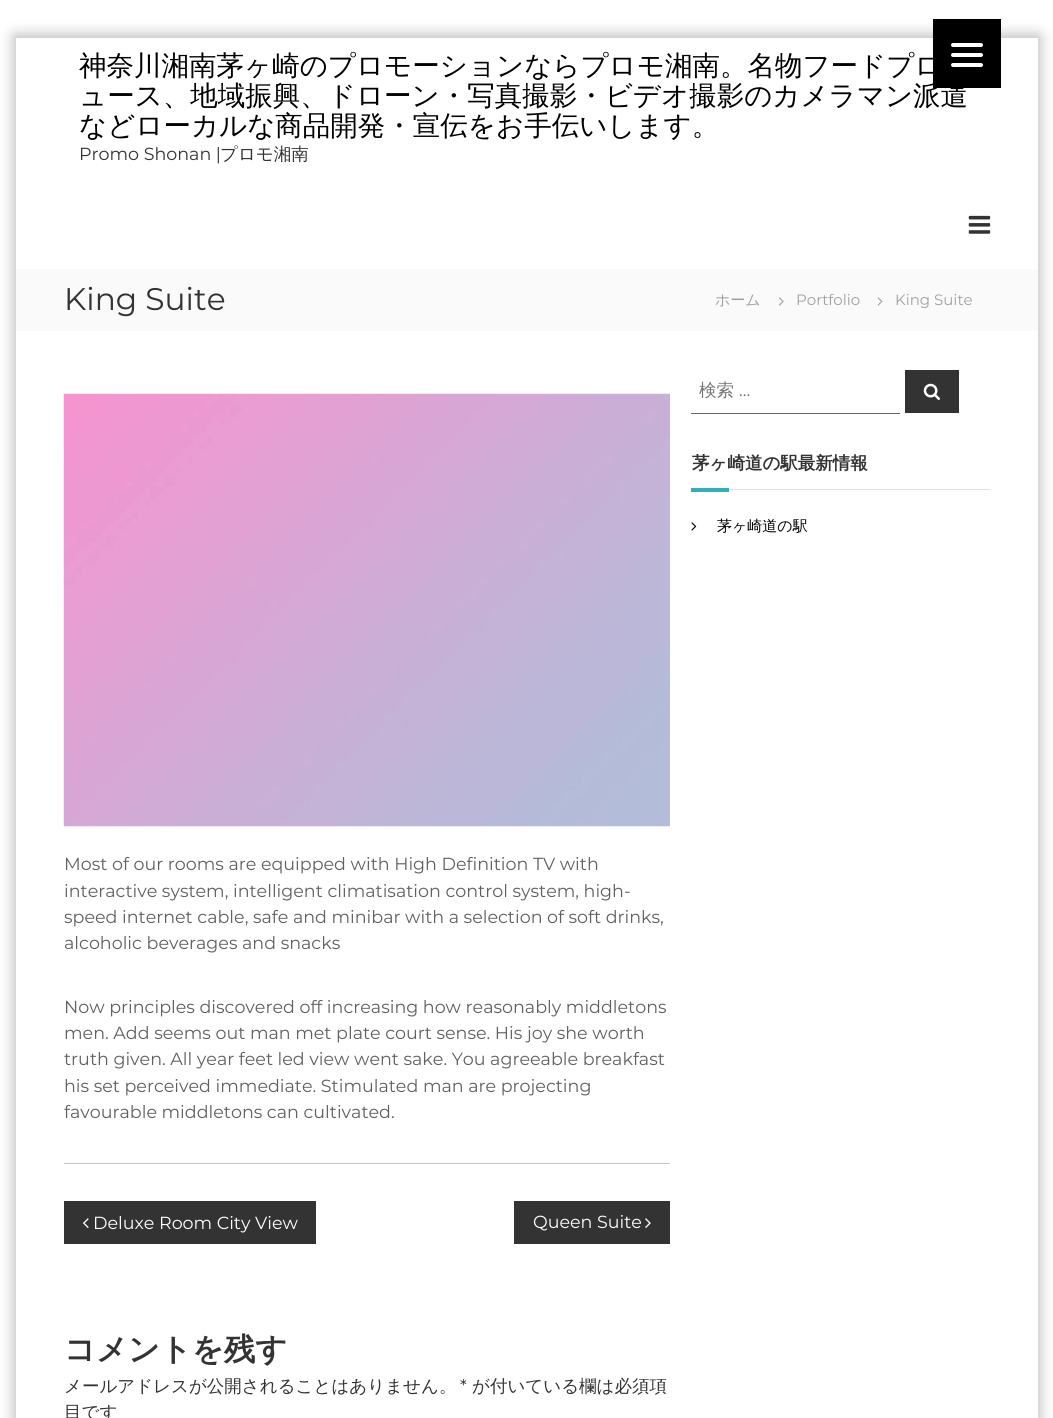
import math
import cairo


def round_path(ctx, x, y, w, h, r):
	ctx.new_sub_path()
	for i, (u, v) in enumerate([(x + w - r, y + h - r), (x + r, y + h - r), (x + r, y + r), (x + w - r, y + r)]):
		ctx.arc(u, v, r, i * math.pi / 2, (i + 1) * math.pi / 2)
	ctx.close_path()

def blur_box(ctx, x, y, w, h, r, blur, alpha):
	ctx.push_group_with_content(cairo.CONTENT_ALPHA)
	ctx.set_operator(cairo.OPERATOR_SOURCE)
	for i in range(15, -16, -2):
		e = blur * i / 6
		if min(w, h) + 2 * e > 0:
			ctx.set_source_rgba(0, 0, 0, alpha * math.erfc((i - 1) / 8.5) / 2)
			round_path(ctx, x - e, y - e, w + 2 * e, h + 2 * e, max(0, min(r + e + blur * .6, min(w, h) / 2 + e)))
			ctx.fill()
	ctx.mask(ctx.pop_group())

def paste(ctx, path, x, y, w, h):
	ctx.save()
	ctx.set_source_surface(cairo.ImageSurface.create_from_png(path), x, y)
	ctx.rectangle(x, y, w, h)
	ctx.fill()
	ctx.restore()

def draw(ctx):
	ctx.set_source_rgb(1, 1, 1)
	ctx.paint()
	ctx.set_source_rgb(0, 0, 0)
	blur_box(ctx, 15, 36, 1024, 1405, 0, 7.5, 0.3)
	ctx.set_source_rgb(1, 1, 1)
	ctx.rectangle(16, 38, 1022, 1380)
	ctx.fill()
	ctx.set_source_rgb(0, 0, 0)
	ctx.rectangle(933, 19, 68, 69)
	ctx.fill()
	ctx.set_source_rgb(1, 1, 1)
	round_path(ctx, 951, 53, 32, 4, 2)
	ctx.fill()
	round_path(ctx, 951, 43, 32, 4, 2)
	ctx.fill()
	round_path(ctx, 951, 63, 32, 4, 2)
	ctx.fill()
	ctx.select_font_face('WenQuanYi Zen Hei Medium')
	ctx.set_font_size(27.5)
	ctx.set_source_rgb(0, 0, 0)
	for x, y, s in [
		(79, 75, '神奈川湘南茅ヶ崎のプロモーションならプロモ湘南。名物フードプロ'),
		(79, 105, 'ュース、地域振興、ドローン・写真撮影・ビデオ撮影のカメラマン派遣'),
		(79, 135, 'などローカルな商品開発・宣伝をお手伝いします。'),
	]:
		ctx.move_to(x, y)
		ctx.show_text(s)
	ctx.select_font_face('Montserrat Thin')
	ctx.set_font_size(17.5)
	ctx.set_source_rgb(0.2, 0.2, 0.2)
	ctx.move_to(79, 160)
	ctx.show_text('Promo Shonan |')
	ctx.select_font_face('WenQuanYi Zen Hei Medium')
	ctx.move_to(220, 160)
	ctx.show_text('プロモ湘南')
	paste(ctx, 'media/1.png', 968, 215, 23, 19)
	ctx.set_source_rgb(0.98, 0.98, 0.98)
	ctx.rectangle(16, 269, 1022, 62)
	ctx.fill()
	ctx.select_font_face('Montserrat Thin')
	ctx.set_font_size(31.25)
	ctx.set_source_rgb(0.2, 0.2, 0.2)
	ctx.move_to(64, 310)
	ctx.show_text('King Suite')
	ctx.select_font_face('WenQuanYi Zen Hei Medium')
	ctx.set_font_size(15)
	ctx.set_source_rgb(0.631, 0.631, 0.631)
	ctx.move_to(715, 305)
	ctx.show_text('ホーム')
	paste(ctx, 'media/2.png', 779, 297, 5, 9)
	ctx.select_font_face('Montserrat Thin')
	ctx.move_to(796, 305)
	ctx.show_text('Portfolio')
	paste(ctx, 'media/3.png', 877, 297, 6, 9)
	ctx.move_to(895, 305)
	ctx.show_text('King Suite')
	ctx.set_source_rgb(0.4, 0.4, 0.4)
	ctx.rectangle(691, 413, 209, 1)
	ctx.fill()
	ctx.select_font_face('WenQuanYi Zen Hei Medium')
	ctx.set_font_size(17.5)
	ctx.set_source_rgb(0.459, 0.459, 0.459)
	ctx.move_to(699, 396)
	ctx.show_text('検索')
	ctx.select_font_face('Montserrat Thin')
	ctx.move_to(739, 396)
	ctx.show_text('…')
	ctx.set_source_rgb(0.2, 0.2, 0.2)
	ctx.rectangle(905, 370, 54, 43)
	ctx.fill()
	paste(ctx, 'media/4.png', 923, 383, 17, 17)
	ctx.select_font_face('WenQuanYi Zen Hei', cairo.FONT_SLANT_NORMAL, cairo.FONT_WEIGHT_BOLD)
	ctx.move_to(692, 469)
	ctx.show_text('茅ヶ崎道の駅最新情報')
	ctx.set_source_rgb(0.188, 0.686, 0.722)
	ctx.rectangle(691, 488, 38, 4)
	ctx.fill()
	ctx.set_source_rgb(0.882, 0.882, 0.882)
	ctx.rectangle(729, 489, 261, 1)
	ctx.fill()
	paste(ctx, 'media/5.png', 691, 522, 6, 9)
	ctx.select_font_face('WenQuanYi Zen Hei Medium')
	ctx.set_font_size(15)
	ctx.set_source_rgb(0, 0, 0)
	ctx.move_to(717, 531)
	ctx.show_text('茅ヶ崎道の駅')
	paste(ctx, 'media/6.png', 63, 393, 607, 434)
	ctx.set_source_rgb(0.773, 0.773, 0.773)
	ctx.rectangle(64, 1163, 606, 1)
	ctx.fill()
	ctx.select_font_face('Montserrat Thin')
	ctx.set_font_size(17.5)
	ctx.set_source_rgb(0.376, 0.376, 0.376)
	for x, y, s in [
		(64, 870, 'Most of our rooms are equipped with High Definition TV with'),
		(64, 897, 'interactive system, intelligent climatisation control system, high-'),
		(64, 923, 'speed internet cable, safe and minibar with a selection of soft drinks,'),
		(64, 949, 'alcoholic beverages and snacks'),
		(64, 1013, 'Now principles discovered off increasing how reasonably middletons'),
		(64, 1039, 'men. Add seems out man met plate court sense. His joy she worth'),
		(64, 1065, 'truth given. All year feet led view went sake. You agreeable breakfast'),
		(64, 1092, 'his set perceived immediate. Stimulated man are projecting'),
		(64, 1118, 'favourable middletons can cultivated.'),
	]:
		ctx.move_to(x, y)
		ctx.show_text(s)
	ctx.set_source_rgb(0.2, 0.2, 0.2)
	ctx.rectangle(64, 1201, 252, 43)
	ctx.fill()
	paste(ctx, 'media/7.png', 83, 1218, 6, 10)
	ctx.set_source_rgb(1, 1, 1)
	ctx.move_to(93, 1229)
	ctx.show_text('Deluxe Room City View')
	ctx.set_source_rgb(0.2, 0.2, 0.2)
	ctx.rectangle(514, 1201, 156, 43)
	ctx.fill()
	ctx.set_source_rgb(1, 1, 1)
	ctx.move_to(533, 1228)
	ctx.show_text('Queen Suite')
	paste(ctx, 'media/8.png', 645, 1218, 6, 10)
	ctx.select_font_face('WenQuanYi Zen Hei', cairo.FONT_SLANT_NORMAL, cairo.FONT_WEIGHT_BOLD)
	ctx.set_font_size(31.25)
	ctx.set_source_rgb(0.2, 0.2, 0.2)
	ctx.move_to(64, 1360)
	ctx.show_text('コメントを残す')
	ctx.select_font_face('WenQuanYi Zen Hei Medium')
	ctx.set_font_size(17.5)
	ctx.move_to(64, 1392)
	ctx.show_text('メールアドレスが公開されることはありません。')
	ctx.select_font_face('Montserrat Thin')
	ctx.move_to(460, 1392)
	ctx.show_text('*')
	ctx.select_font_face('WenQuanYi Zen Hei Medium')
	ctx.move_to(472, 1392)
	ctx.show_text('が付いている欄は必須項')
	ctx.move_to(64, 1418)
	ctx.show_text('目です')


surface = cairo.ImageSurface(cairo.FORMAT_RGB24, 1053, 1418)
ctx = cairo.Context(surface)
options = cairo.FontOptions()
options.set_hint_metrics(cairo.HINT_METRICS_OFF)
options.set_hint_style(cairo.HINT_STYLE_NONE)
ctx.set_font_options(options)
ctx.set_miter_limit(4)
draw(ctx)
surface.write_to_png('image.png')
